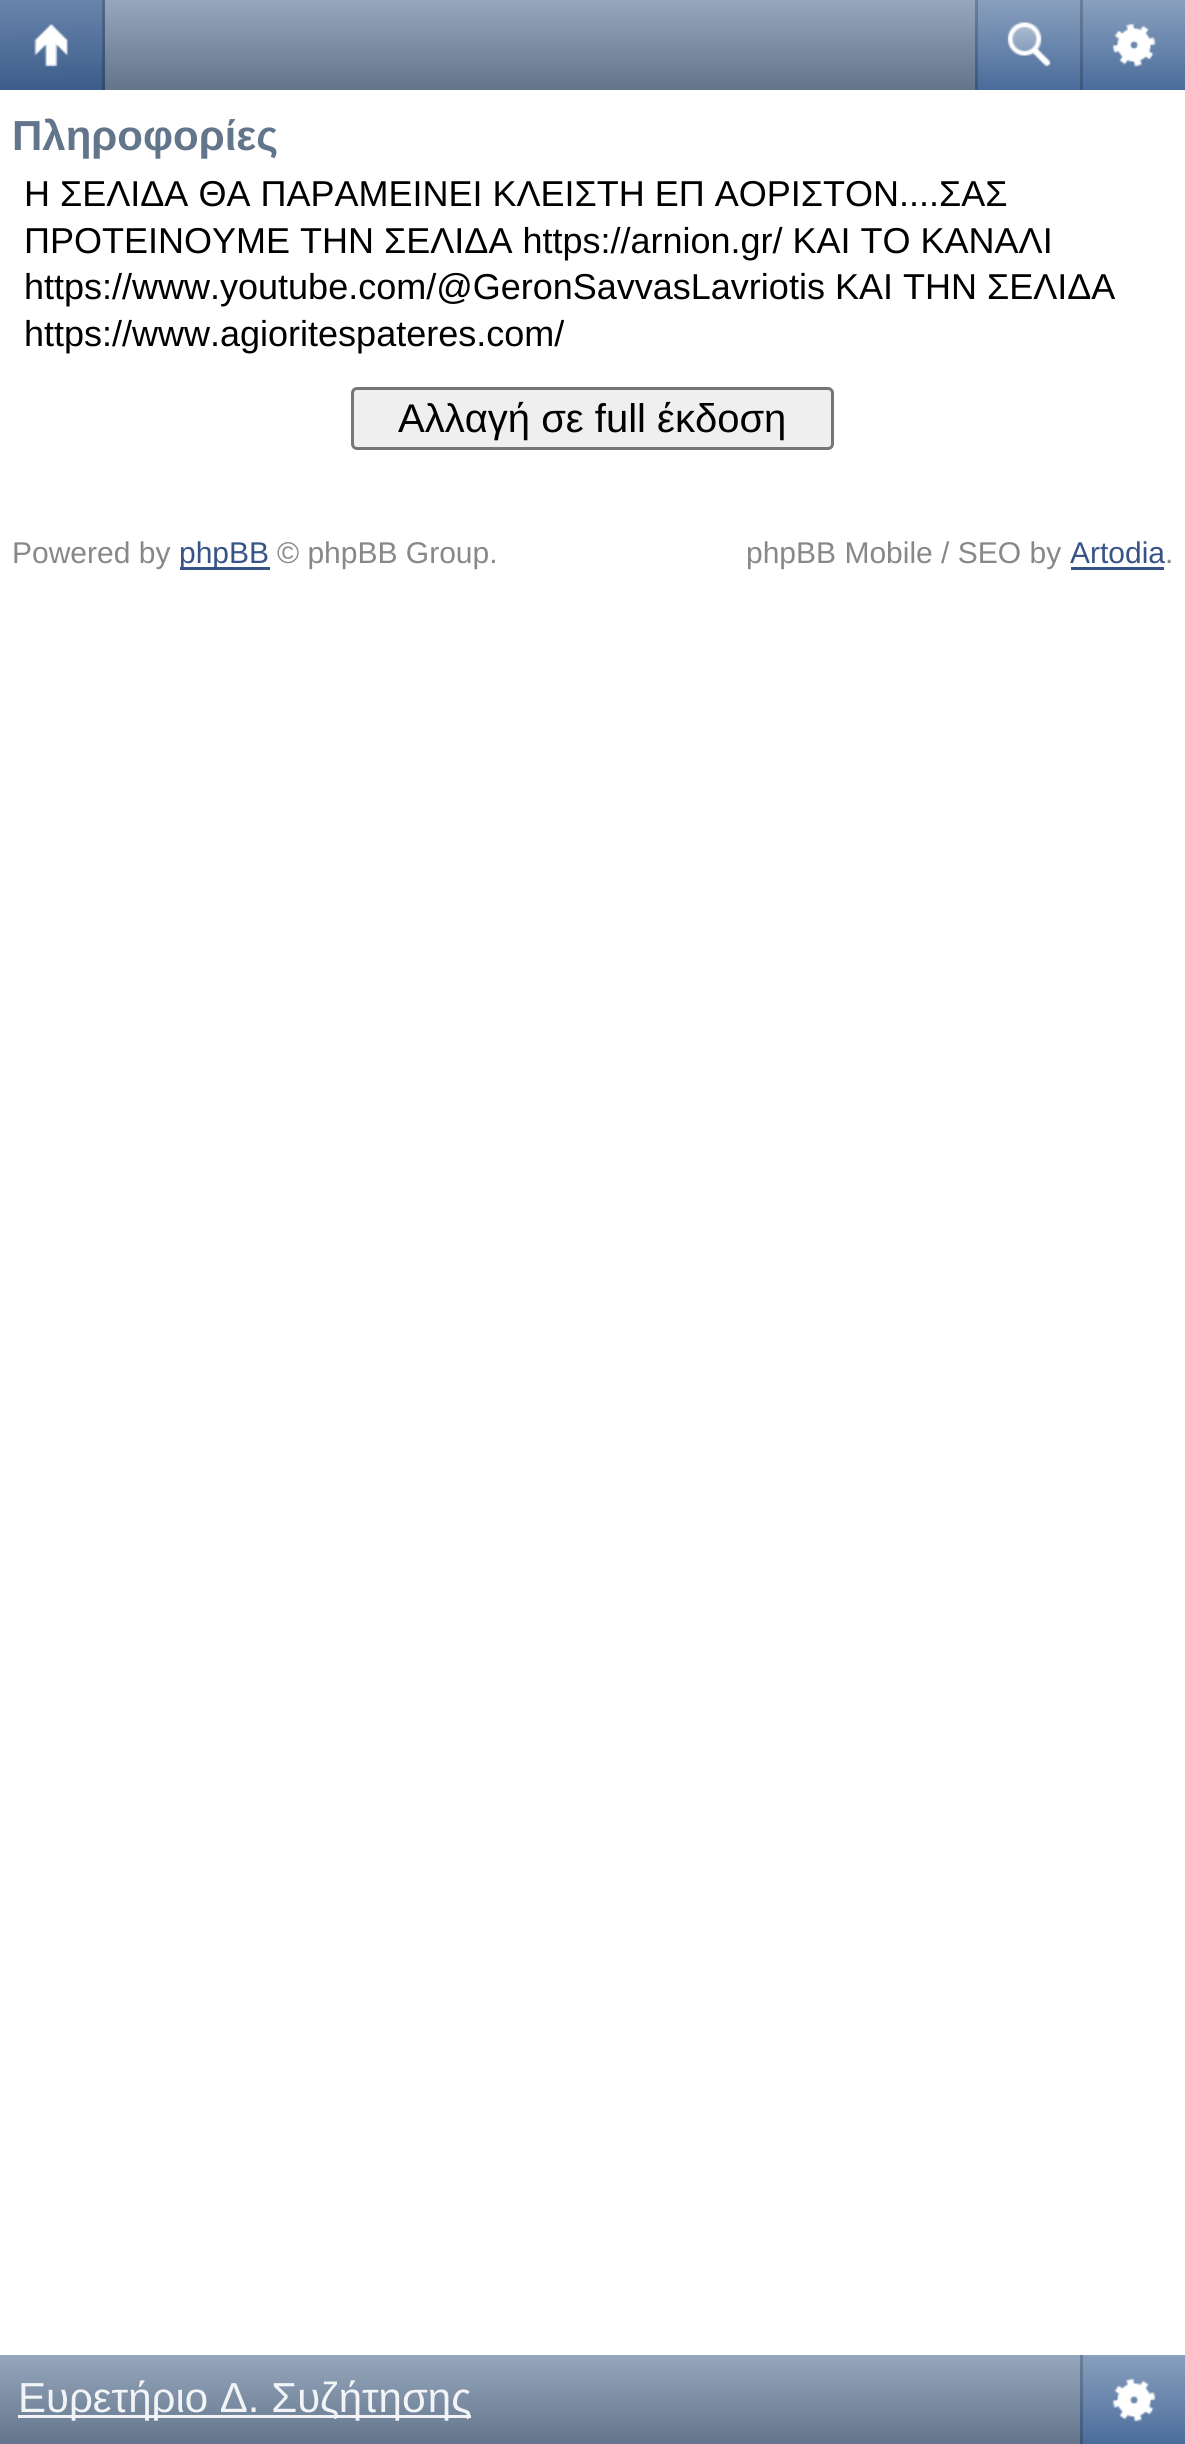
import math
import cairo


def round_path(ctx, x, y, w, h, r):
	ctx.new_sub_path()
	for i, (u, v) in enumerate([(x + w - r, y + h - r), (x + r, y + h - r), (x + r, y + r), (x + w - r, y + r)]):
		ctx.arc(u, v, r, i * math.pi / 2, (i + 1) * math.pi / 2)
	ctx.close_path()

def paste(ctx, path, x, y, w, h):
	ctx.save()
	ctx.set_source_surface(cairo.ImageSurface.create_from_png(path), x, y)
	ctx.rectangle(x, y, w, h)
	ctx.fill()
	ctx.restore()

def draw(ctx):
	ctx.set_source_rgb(1, 1, 1)
	ctx.paint()
	gradient = cairo.LinearGradient(593, 0, 593, 90)
	gradient.add_color_stop_rgba(0, 0.588, 0.655, 0.741, 1)
	gradient.add_color_stop_rgba(1, 0.388, 0.459, 0.545, 1)
	ctx.set_source(gradient)
	ctx.rectangle(105, 0, 870, 90)
	ctx.fill()
	gradient = cairo.LinearGradient(52, 0, 53, 90)
	gradient.add_color_stop_rgba(0, 0.408, 0.518, 0.671, 1)
	gradient.add_color_stop_rgba(1, 0.235, 0.365, 0.545, 1)
	ctx.set_source(gradient)
	ctx.rectangle(0, 0, 102, 90)
	ctx.fill()
	gradient = cairo.LinearGradient(52, 0, 53, 90)
	gradient.add_color_stop_rgba(0, 0.325, 0.416, 0.537, 1)
	gradient.add_color_stop_rgba(1, 0.188, 0.29, 0.435, 1)
	ctx.set_source(gradient)
	ctx.rectangle(102, 0, 3, 90)
	ctx.fill()
	paste(ctx, 'media/1.png', 34, 23, 34, 44)
	gradient = cairo.LinearGradient(1028, 0, 1028, 90)
	gradient.add_color_stop_rgba(0, 0.537, 0.627, 0.745, 1)
	gradient.add_color_stop_rgba(1, 0.29, 0.424, 0.608, 1)
	ctx.set_source(gradient)
	ctx.rectangle(978, 0, 102, 90)
	ctx.fill()
	gradient = cairo.LinearGradient(1028, 0, 1028, 90)
	gradient.add_color_stop_rgba(0, 0.431, 0.502, 0.596, 1)
	gradient.add_color_stop_rgba(1, 0.231, 0.337, 0.486, 1)
	ctx.set_source(gradient)
	ctx.rectangle(975, 0, 3, 90)
	ctx.fill()
	paste(ctx, 'media/2.png', 1007, 22, 44, 45)
	gradient = cairo.LinearGradient(1133, 0, 1133, 90)
	gradient.add_color_stop_rgba(0, 0.537, 0.627, 0.745, 1)
	gradient.add_color_stop_rgba(1, 0.29, 0.424, 0.608, 1)
	ctx.set_source(gradient)
	ctx.rectangle(1083, 0, 102, 90)
	ctx.fill()
	gradient = cairo.LinearGradient(1133, 0, 1133, 90)
	gradient.add_color_stop_rgba(0, 0.431, 0.502, 0.596, 1)
	gradient.add_color_stop_rgba(1, 0.231, 0.337, 0.486, 1)
	ctx.set_source(gradient)
	ctx.rectangle(1080, 0, 3, 90)
	ctx.fill()
	paste(ctx, 'media/3.png', 1112, 23, 44, 44)
	ctx.select_font_face('Liberation Sans', cairo.FONT_SLANT_NORMAL, cairo.FONT_WEIGHT_BOLD)
	ctx.set_font_size(42)
	ctx.set_source_rgb(0.388, 0.459, 0.545)
	ctx.move_to(12, 150)
	ctx.show_text('Πληροφορίες')
	ctx.select_font_face('Liberation Sans')
	ctx.set_font_size(36)
	ctx.set_source_rgb(0, 0, 0)
	for x, y, s in [
		(24, 206, 'Η ΣΕΛΙΔΑ ΘΑ ΠΑΡΑΜΕΙΝΕΙ ΚΛΕΙΣΤΗ ΕΠ ΑΟΡΙΣΤΟΝ....ΣΑΣ'),
		(24, 253, 'ΠΡΟΤΕΙΝΟΥΜΕ ΤΗΝ ΣΕΛΙΔΑ https://arnion.gr/ ΚΑΙ ΤΟ ΚΑΝΑΛΙ'),
		(24, 299, 'https://www.youtube.com/@GeronSavvasLavriotis ΚΑΙ ΤΗΝ ΣΕΛΙΔΑ'),
		(24, 346, 'https://www.agioritespateres.com/'),
	]:
		ctx.move_to(x, y)
		ctx.show_text(s)
	ctx.set_source_rgb(0.937, 0.937, 0.937)
	round_path(ctx, 352.5, 388.5, 480, 60, 4.5)
	ctx.fill_preserve()
	ctx.set_source_rgb(0.463, 0.463, 0.463)
	ctx.set_line_width(3)
	ctx.stroke()
	ctx.set_font_size(40)
	ctx.set_source_rgb(0, 0, 0)
	ctx.move_to(398, 432)
	ctx.show_text('Αλλαγή σε full έκδοση')
	ctx.set_font_size(30)
	ctx.set_source_rgb(0.533, 0.533, 0.533)
	ctx.move_to(12, 563)
	ctx.show_text('Powered by')
	ctx.set_source_rgb(0.22, 0.329, 0.529)
	ctx.rectangle(180, 567, 90, 3)
	ctx.fill()
	ctx.move_to(179, 563)
	ctx.show_text('phpBB')
	ctx.set_source_rgb(0.533, 0.533, 0.533)
	ctx.move_to(277, 563)
	ctx.show_text('© phpBB Group.')
	ctx.move_to(746, 563)
	ctx.show_text('phpBB Mobile / SEO by')
	ctx.set_source_rgb(0.22, 0.329, 0.529)
	ctx.move_to(1070, 563)
	ctx.show_text('Artodia')
	ctx.rectangle(1071, 567, 93, 3)
	ctx.fill()
	ctx.set_source_rgb(0.533, 0.533, 0.533)
	ctx.move_to(1165, 563)
	ctx.show_text('.')
	gradient = cairo.LinearGradient(593, 2355, 593, 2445)
	gradient.add_color_stop_rgba(0, 0.588, 0.655, 0.741, 1)
	gradient.add_color_stop_rgba(1, 0.388, 0.459, 0.545, 1)
	ctx.set_source(gradient)
	ctx.rectangle(0, 2355, 1080, 89)
	ctx.fill()
	ctx.set_source_rgb(0.945, 0.953, 0.961)
	ctx.rectangle(18, 2415, 453, 3)
	ctx.fill()
	ctx.set_font_size(42)
	ctx.set_source_rgb(0.949, 0.957, 0.965)
	ctx.move_to(18, 2412)
	ctx.show_text('Ευρετήριο Δ. Συζήτησης')
	gradient = cairo.LinearGradient(1133, 2355, 1133, 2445)
	gradient.add_color_stop_rgba(0, 0.537, 0.627, 0.745, 1)
	gradient.add_color_stop_rgba(1, 0.29, 0.424, 0.608, 1)
	ctx.set_source(gradient)
	ctx.rectangle(1083, 2355, 102, 89)
	ctx.fill()
	gradient = cairo.LinearGradient(1133, 2355, 1133, 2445)
	gradient.add_color_stop_rgba(0, 0.431, 0.502, 0.596, 1)
	gradient.add_color_stop_rgba(1, 0.231, 0.337, 0.486, 1)
	ctx.set_source(gradient)
	ctx.rectangle(1080, 2355, 3, 89)
	ctx.fill()
	paste(ctx, 'media/3.png', 1112, 2378, 44, 44)


surface = cairo.ImageSurface(cairo.FORMAT_RGB24, 1185, 2444)
ctx = cairo.Context(surface)
options = cairo.FontOptions()
options.set_hint_metrics(cairo.HINT_METRICS_OFF)
options.set_hint_style(cairo.HINT_STYLE_NONE)
ctx.set_font_options(options)
ctx.set_miter_limit(4)
draw(ctx)
surface.write_to_png('image.png')
